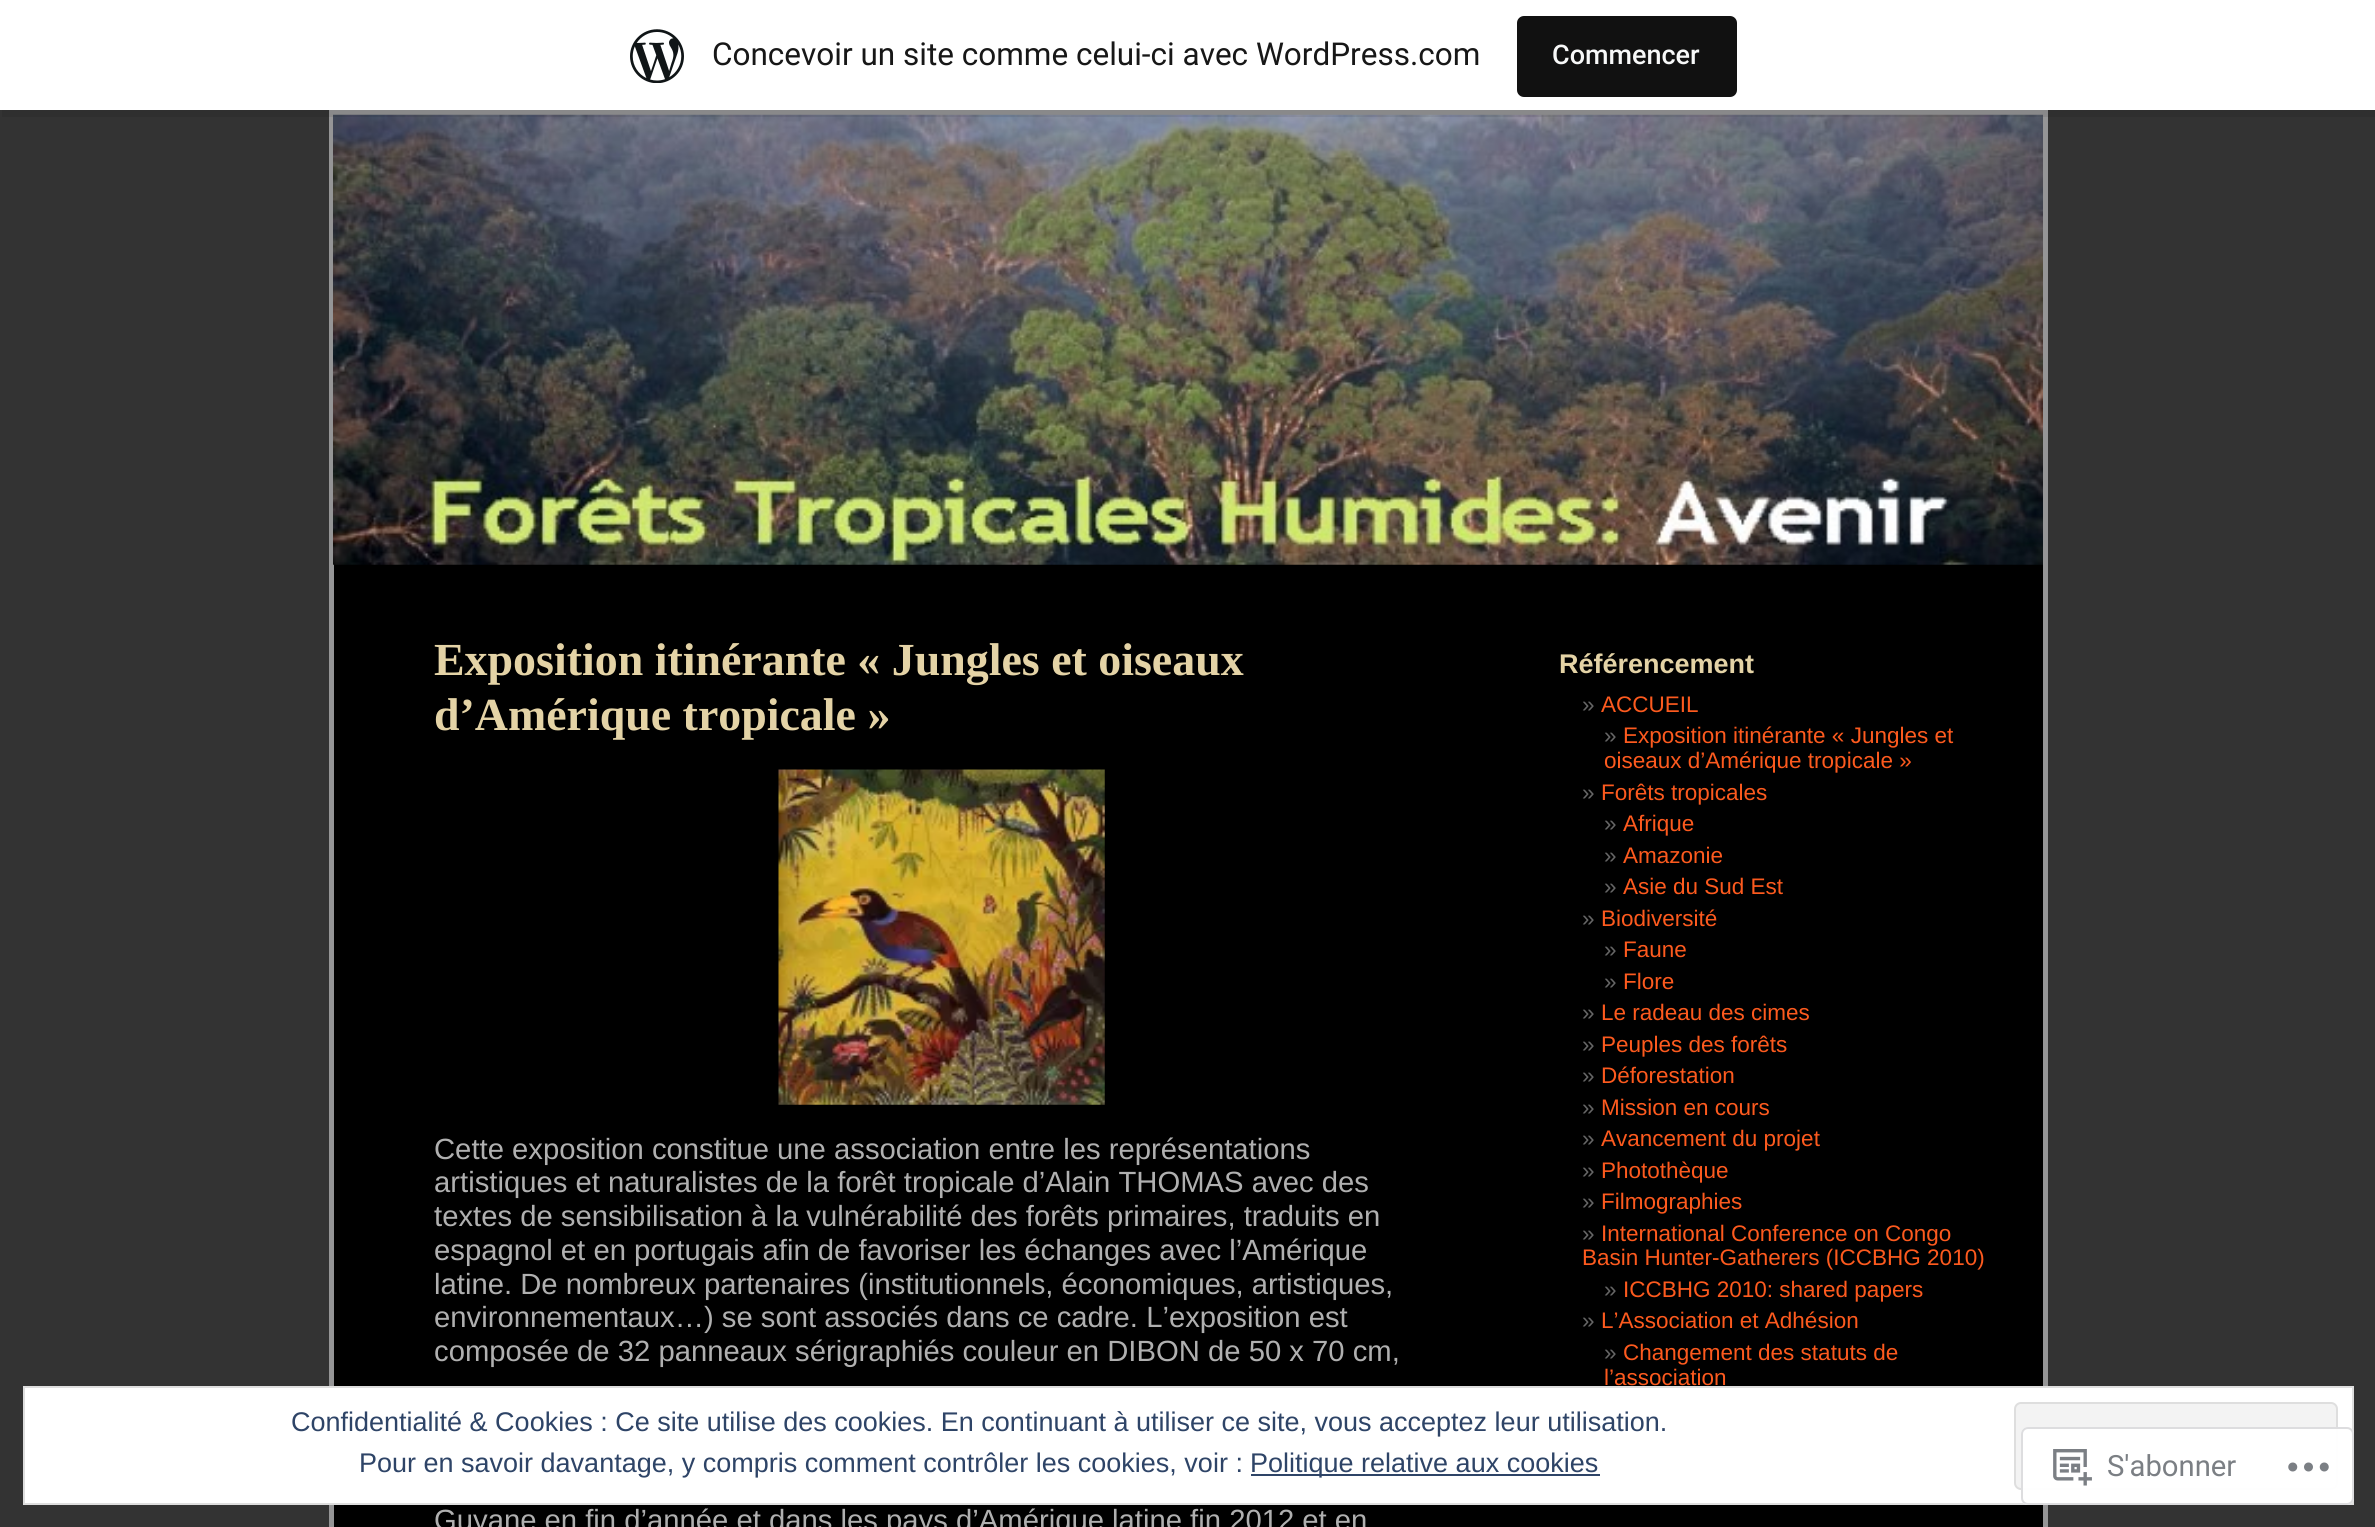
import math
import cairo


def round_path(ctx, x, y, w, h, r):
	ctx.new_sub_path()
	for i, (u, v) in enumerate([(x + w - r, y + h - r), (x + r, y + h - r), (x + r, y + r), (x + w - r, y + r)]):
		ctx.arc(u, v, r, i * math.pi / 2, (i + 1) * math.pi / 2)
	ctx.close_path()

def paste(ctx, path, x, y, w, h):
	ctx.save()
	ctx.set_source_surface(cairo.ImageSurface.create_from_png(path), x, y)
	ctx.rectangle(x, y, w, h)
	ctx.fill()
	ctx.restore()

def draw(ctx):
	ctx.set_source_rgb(0.2, 0.2, 0.2)
	ctx.paint()
	ctx.set_source_rgb(0, 0, 0)
	ctx.rectangle(334, 564, 1709, 963)
	ctx.fill()
	ctx.rectangle(331.5, 112.5, 1714, 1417)
	ctx.set_source_rgb(0.584, 0.584, 0.588)
	ctx.set_line_width(5)
	ctx.stroke()
	paste(ctx, 'media/2.png', 333, 114, 1710, 451)
	ctx.set_source_rgba(0, 0, 0, 0.08)
	ctx.new_path()
	ctx.move_to(2, 110)
	ctx.line_to(2, 117)
	ctx.line_to(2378, 117)
	ctx.line_to(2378, 7)
	ctx.line_to(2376, 7)
	ctx.line_to(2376, 110)
	ctx.close_path()
	ctx.fill()
	ctx.set_source_rgb(1, 1, 1)
	ctx.rectangle(0, 0, 2375, 110)
	ctx.fill()
	paste(ctx, 'media/1.png', 630, 29, 54, 54)
	ctx.select_font_face('Roboto')
	ctx.set_font_size(31.5)
	ctx.set_source_rgb(0.09, 0.09, 0.09)
	ctx.move_to(712, 65)
	ctx.show_text('Concevoir un site comme celui-ci avec WordPress.com')
	ctx.set_source_rgb(0.067, 0.067, 0.067)
	round_path(ctx, 1517, 16, 220, 81, 7)
	ctx.fill()
	ctx.select_font_face('Roboto Medium')
	ctx.set_font_size(27)
	ctx.set_source_rgb(0.965, 0.969, 0.969)
	ctx.move_to(1552, 64)
	ctx.show_text('Commencer')
	ctx.select_font_face('Liberation Serif', cairo.FONT_SLANT_NORMAL, cairo.FONT_WEIGHT_BOLD)
	ctx.set_font_size(45.9)
	ctx.set_source_rgb(0.894, 0.827, 0.651)
	ctx.move_to(434, 675)
	ctx.show_text('Exposition itinérante « Jungles et oiseaux')
	ctx.move_to(434, 730)
	ctx.show_text('d’Amérique tropicale »')
	paste(ctx, 'media/3.png', 778, 769, 327, 336)
	ctx.select_font_face('Liberation Sans')
	ctx.set_font_size(29.25)
	ctx.set_source_rgb(0.69, 0.69, 0.69)
	for x, y, s in [
		(434, 1159, 'Cette exposition constitue une association entre les représentations'),
		(434, 1192, 'artistiques et naturalistes de la forêt tropicale d’Alain THOMAS avec des'),
		(434, 1226, 'textes de sensibilisation à la vulnérabilité des forêts primaires, traduits en'),
		(434, 1260, 'espagnol et en portugais afin de favoriser les échanges avec l’Amérique'),
		(434, 1294, 'latine. De nombreux partenaires (institutionnels, économiques, artistiques,'),
		(434, 1327, 'environnementaux…) se sont associés dans ce cadre. L’exposition est'),
		(434, 1361, 'composée de 32 panneaux sérigraphiés couleur en DIBON de 50 x 70 cm,'),
		(434, 1530, 'Guyane en fin d’année et dans les pays d’Amérique latine fin 2012 et en'),
	]:
		ctx.move_to(x, y)
		ctx.show_text(s)
	ctx.select_font_face('Liberation Sans', cairo.FONT_SLANT_NORMAL, cairo.FONT_WEIGHT_BOLD)
	ctx.set_font_size(27)
	ctx.set_source_rgb(0.894, 0.827, 0.651)
	ctx.move_to(1559, 673)
	ctx.show_text('Référencement')
	ctx.select_font_face('Liberation Sans')
	ctx.set_font_size(22.5)
	ctx.set_source_rgb(0.4, 0.4, 0.4)
	ctx.move_to(1582, 712)
	ctx.show_text('»')
	ctx.set_source_rgb(0.992, 0.353, 0.118)
	ctx.move_to(1601, 712)
	ctx.show_text('ACCUEIL')
	ctx.set_source_rgb(0.4, 0.4, 0.4)
	ctx.move_to(1604, 743)
	ctx.show_text('»')
	ctx.set_source_rgb(0.992, 0.353, 0.118)
	ctx.move_to(1623, 743)
	ctx.show_text('Exposition itinérante « Jungles et')
	ctx.move_to(1604, 768)
	ctx.show_text('oiseaux d’Amérique tropicale »')
	ctx.set_source_rgb(0.4, 0.4, 0.4)
	ctx.move_to(1582, 800)
	ctx.show_text('»')
	ctx.set_source_rgb(0.992, 0.353, 0.118)
	ctx.move_to(1601, 800)
	ctx.show_text('Forêts tropicales')
	ctx.set_source_rgb(0.4, 0.4, 0.4)
	ctx.move_to(1604, 831)
	ctx.show_text('»')
	ctx.set_source_rgb(0.992, 0.353, 0.118)
	ctx.move_to(1623, 831)
	ctx.show_text('Afrique')
	ctx.set_source_rgb(0.4, 0.4, 0.4)
	ctx.move_to(1604, 863)
	ctx.show_text('»')
	ctx.set_source_rgb(0.992, 0.353, 0.118)
	ctx.move_to(1623, 863)
	ctx.show_text('Amazonie')
	ctx.set_source_rgb(0.4, 0.4, 0.4)
	ctx.move_to(1604, 894)
	ctx.show_text('»')
	ctx.set_source_rgb(0.992, 0.353, 0.118)
	ctx.move_to(1623, 894)
	ctx.show_text('Asie du Sud Est')
	ctx.set_source_rgb(0.4, 0.4, 0.4)
	ctx.move_to(1582, 926)
	ctx.show_text('»')
	ctx.set_source_rgb(0.992, 0.353, 0.118)
	ctx.move_to(1601, 926)
	ctx.show_text('Biodiversité')
	ctx.set_source_rgb(0.4, 0.4, 0.4)
	ctx.move_to(1604, 957)
	ctx.show_text('»')
	ctx.set_source_rgb(0.992, 0.353, 0.118)
	ctx.move_to(1623, 957)
	ctx.show_text('Faune')
	ctx.set_source_rgb(0.4, 0.4, 0.4)
	ctx.move_to(1604, 989)
	ctx.show_text('»')
	ctx.set_source_rgb(0.992, 0.353, 0.118)
	ctx.move_to(1623, 989)
	ctx.show_text('Flore')
	ctx.set_source_rgb(0.4, 0.4, 0.4)
	ctx.move_to(1582, 1020)
	ctx.show_text('»')
	ctx.set_source_rgb(0.992, 0.353, 0.118)
	ctx.move_to(1601, 1020)
	ctx.show_text('Le radeau des cimes')
	ctx.set_source_rgb(0.4, 0.4, 0.4)
	ctx.move_to(1582, 1052)
	ctx.show_text('»')
	ctx.set_source_rgb(0.992, 0.353, 0.118)
	ctx.move_to(1601, 1052)
	ctx.show_text('Peuples des forêts')
	ctx.set_source_rgb(0.4, 0.4, 0.4)
	ctx.move_to(1582, 1083)
	ctx.show_text('»')
	ctx.set_source_rgb(0.992, 0.353, 0.118)
	ctx.move_to(1601, 1083)
	ctx.show_text('Déforestation')
	ctx.set_source_rgb(0.4, 0.4, 0.4)
	ctx.move_to(1582, 1115)
	ctx.show_text('»')
	ctx.set_source_rgb(0.992, 0.353, 0.118)
	ctx.move_to(1601, 1115)
	ctx.show_text('Mission en cours')
	ctx.set_source_rgb(0.4, 0.4, 0.4)
	ctx.move_to(1582, 1146)
	ctx.show_text('»')
	ctx.set_source_rgb(0.992, 0.353, 0.118)
	ctx.move_to(1601, 1146)
	ctx.show_text('Avancement du projet')
	ctx.set_source_rgb(0.4, 0.4, 0.4)
	ctx.move_to(1582, 1178)
	ctx.show_text('»')
	ctx.set_source_rgb(0.992, 0.353, 0.118)
	ctx.move_to(1601, 1178)
	ctx.show_text('Photothèque')
	ctx.set_source_rgb(0.4, 0.4, 0.4)
	ctx.move_to(1582, 1209)
	ctx.show_text('»')
	ctx.set_source_rgb(0.992, 0.353, 0.118)
	ctx.move_to(1601, 1209)
	ctx.show_text('Filmographies')
	ctx.set_source_rgb(0.4, 0.4, 0.4)
	ctx.move_to(1582, 1241)
	ctx.show_text('»')
	ctx.set_source_rgb(0.992, 0.353, 0.118)
	ctx.move_to(1601, 1241)
	ctx.show_text('International Conference on Congo')
	ctx.move_to(1582, 1265)
	ctx.show_text('Basin Hunter-Gatherers (ICCBHG 2010)')
	ctx.set_source_rgb(0.4, 0.4, 0.4)
	ctx.move_to(1604, 1297)
	ctx.show_text('»')
	ctx.set_source_rgb(0.992, 0.353, 0.118)
	ctx.move_to(1623, 1297)
	ctx.show_text('ICCBHG 2010: shared papers')
	ctx.set_source_rgb(0.4, 0.4, 0.4)
	ctx.move_to(1582, 1328)
	ctx.show_text('»')
	ctx.set_source_rgb(0.992, 0.353, 0.118)
	ctx.move_to(1601, 1328)
	ctx.show_text('L’Association et Adhésion')
	ctx.set_source_rgb(0.4, 0.4, 0.4)
	ctx.move_to(1604, 1360)
	ctx.show_text('»')
	ctx.set_source_rgb(0.992, 0.353, 0.118)
	ctx.move_to(1623, 1360)
	ctx.show_text('Changement des statuts de')
	ctx.move_to(1604, 1385)
	ctx.show_text('l’association')
	ctx.set_source_rgb(1, 1, 1)
	ctx.rectangle(24, 1387, 2329, 117)
	ctx.fill_preserve()
	ctx.set_source_rgb(0.871, 0.871, 0.871)
	ctx.set_line_width(2)
	ctx.stroke()
	ctx.set_font_size(27)
	ctx.set_source_rgb(0.18, 0.267, 0.404)
	ctx.move_to(291, 1431)
	ctx.show_text('Confidentialité & Cookies : Ce site utilise des cookies. En continuant à utiliser ce site, vous acceptez leur utilisation.')
	ctx.set_source_rgb(0.953, 0.953, 0.953)
	round_path(ctx, 2015, 1403, 322, 86, 6)
	ctx.fill_preserve()
	ctx.set_source_rgb(0.871, 0.871, 0.871)
	ctx.stroke()
	ctx.set_source_rgb(0.18, 0.267, 0.404)
	ctx.move_to(359, 1472)
	ctx.show_text('Pour en savoir davantage, y compris comment contrôler les cookies, voir :')
	ctx.rectangle(1251, 1474, 349, 2)
	ctx.fill()
	ctx.move_to(1250, 1472)
	ctx.show_text('Politique relative aux cookies')
	ctx.set_source_rgba(1, 1, 1, 0.98)
	round_path(ctx, 2021, 1427, 333, 78, 7)
	ctx.fill()
	round_path(ctx, 2022, 1428, 331, 76, 6)
	ctx.set_source_rgba(0.863, 0.863, 0.871, 0.98)
	ctx.stroke()
	paste(ctx, 'media/4.png', 2053, 1449, 39, 37)
	ctx.select_font_face('Roboto')
	ctx.set_font_size(29.25)
	ctx.set_source_rgb(0.482, 0.498, 0.518)
	ctx.move_to(2107, 1476)
	ctx.show_text('S\'abonner')
	paste(ctx, 'media/5.png', 2288, 1462, 41, 10)


surface = cairo.ImageSurface(cairo.FORMAT_RGB24, 2375, 1527)
ctx = cairo.Context(surface)
options = cairo.FontOptions()
options.set_hint_metrics(cairo.HINT_METRICS_OFF)
options.set_hint_style(cairo.HINT_STYLE_NONE)
ctx.set_font_options(options)
ctx.set_miter_limit(4)
draw(ctx)
surface.write_to_png('image.png')
